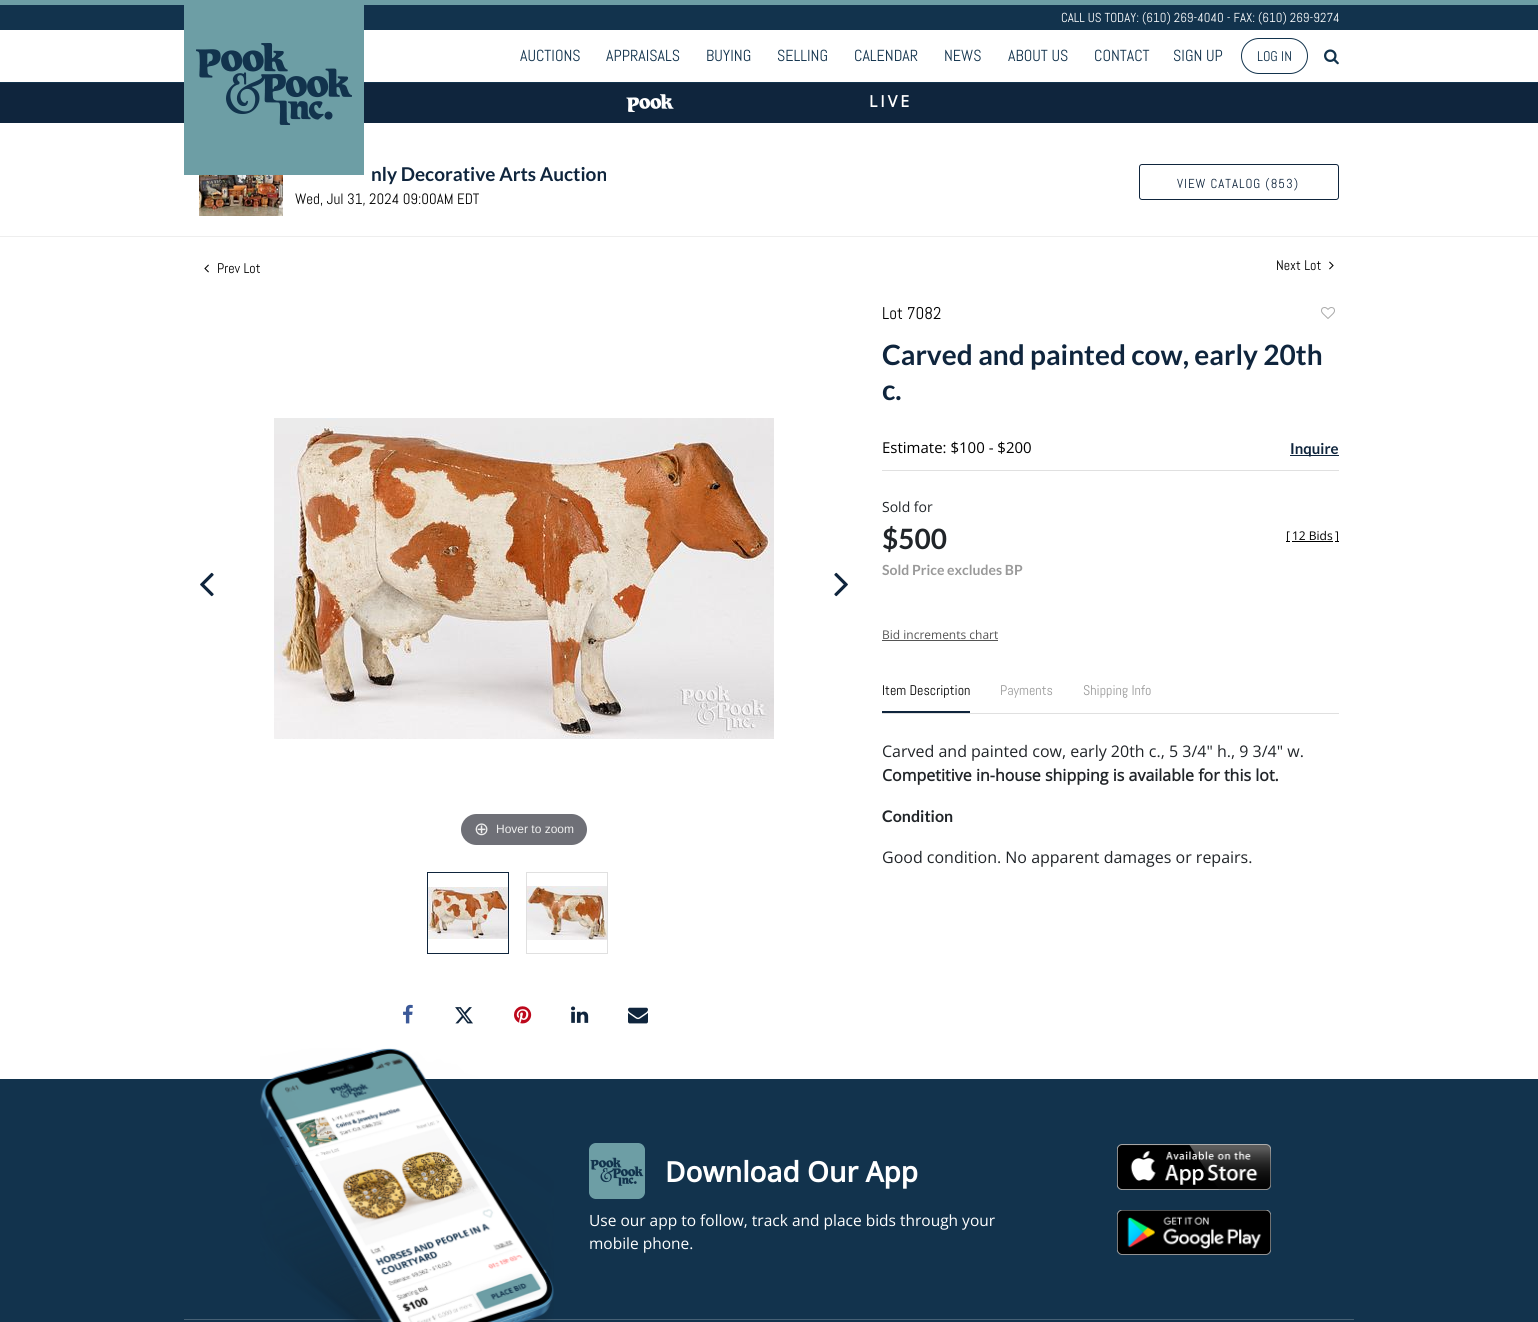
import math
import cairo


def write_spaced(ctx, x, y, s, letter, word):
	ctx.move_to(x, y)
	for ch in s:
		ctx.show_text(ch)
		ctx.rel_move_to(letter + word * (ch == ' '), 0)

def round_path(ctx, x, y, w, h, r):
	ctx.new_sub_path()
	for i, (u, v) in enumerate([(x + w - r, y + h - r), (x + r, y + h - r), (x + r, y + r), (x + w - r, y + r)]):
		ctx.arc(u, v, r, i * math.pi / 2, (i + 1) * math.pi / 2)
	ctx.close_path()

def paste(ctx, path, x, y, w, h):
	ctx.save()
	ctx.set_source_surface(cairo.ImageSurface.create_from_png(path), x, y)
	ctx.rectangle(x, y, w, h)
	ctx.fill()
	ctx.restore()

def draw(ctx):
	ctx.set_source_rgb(1, 1, 1)
	ctx.paint()
	ctx.set_source_rgb(0.071, 0.2, 0.302)
	ctx.rectangle(0, 5, 1538, 25)
	ctx.fill()
	ctx.set_source_rgb(0.427, 0.62, 0.647)
	ctx.rectangle(0, 0, 1538, 5)
	ctx.fill()
	ctx.select_font_face('Abel')
	ctx.set_font_size(13)
	ctx.set_source_rgb(1, 1, 1)
	ctx.move_to(1061, 22)
	ctx.show_text('CALL US TODAY: (610) 269-4040 - FAX: (610) 269-9274')
	ctx.set_source_rgb(0.071, 0.2, 0.302)
	ctx.rectangle(0, 82, 1538, 1)
	ctx.fill()
	ctx.set_source_rgb(0.059, 0.145, 0.239)
	ctx.rectangle(0, 83, 1538, 40)
	ctx.fill()
	paste(ctx, 'media/1.png', 184, 5, 180, 170)
	ctx.set_font_size(16)
	ctx.set_source_rgb(0.071, 0.2, 0.302)
	for x, y, s in [
		(520, 61, 'AUCTIONS'),
		(606, 61, 'APPRAISALS'),
		(706, 61, 'BUYING'),
		(777, 61, 'SELLING'),
		(854, 61, 'CALENDAR'),
		(944, 61, 'NEWS'),
		(1008, 61, 'ABOUT US'),
		(1094, 61, 'CONTACT'),
		(1173, 61, 'SIGN UP'),
	]:
		ctx.move_to(x, y)
		ctx.show_text(s)
	round_path(ctx, 1241.5, 38.5, 66, 35, 17.5)
	ctx.set_line_width(1)
	ctx.stroke()
	ctx.set_font_size(14)
	ctx.move_to(1257, 61)
	ctx.show_text('LOG IN')
	paste(ctx, 'media/2.png', 1324, 49, 15, 16)
	paste(ctx, 'media/3.png', 626, 94, 48, 18)
	ctx.select_font_face('Open Sans', cairo.FONT_SLANT_NORMAL, cairo.FONT_WEIGHT_BOLD)
	ctx.set_font_size(16)
	ctx.set_source_rgb(1, 1, 1)
	write_spaced(ctx, 869, 107, 'LIVE', 3, 0)
	paste(ctx, 'media/4.png', 199, 175, 84, 41)
	ctx.select_font_face('Lato', cairo.FONT_SLANT_NORMAL, cairo.FONT_WEIGHT_BOLD)
	ctx.set_font_size(19)
	ctx.set_source_rgb(0.059, 0.145, 0.239)
	ctx.move_to(371, 181)
	ctx.show_text('nly Decorative Arts Auction')
	ctx.select_font_face('Abel')
	ctx.set_font_size(15)
	ctx.set_source_rgb(0, 0, 0)
	ctx.move_to(295, 204)
	ctx.show_text('Wed, Jul 31, 2024 09:00AM EDT')
	round_path(ctx, 1139.5, 164.5, 199, 35, 2.5)
	ctx.set_source_rgb(0.059, 0.145, 0.239)
	ctx.stroke()
	ctx.set_font_size(13)
	write_spaced(ctx, 1177, 188, 'VIEW CATALOG (853)', 1, 0)
	ctx.set_source_rgb(0.933, 0.933, 0.933)
	ctx.rectangle(0, 236, 1538, 1)
	ctx.fill()
	paste(ctx, 'media/5.png', 204, 264, 5, 9)
	ctx.set_font_size(14)
	ctx.set_source_rgb(0, 0, 0)
	ctx.move_to(217, 273)
	ctx.show_text('Prev Lot')
	ctx.move_to(1276, 270)
	ctx.show_text('Next Lot')
	paste(ctx, 'media/6.png', 1329, 261, 5, 9)
	paste(ctx, 'media/7.png', 200, 572, 14, 25)
	paste(ctx, 'media/8.png', 834, 572, 14, 25)
	paste(ctx, 'media/9.png', 274, 418, 500, 321)
	ctx.set_source_rgb(0.435, 0.439, 0.467)
	round_path(ctx, 461, 814, 126, 31, 15.5)
	ctx.fill()
	ctx.select_font_face('DejaVu Sans')
	ctx.set_font_size(18)
	ctx.set_source_rgb(0.933, 0.933, 0.933)
	ctx.move_to(474, 835)
	ctx.show_text('⊕')
	ctx.select_font_face('Liberation Sans')
	ctx.set_font_size(12)
	ctx.move_to(496, 833)
	ctx.show_text('Hover to zoom')
	paste(ctx, 'media/10.png', 428, 887, 80, 52)
	ctx.rectangle(427.5, 872.5, 81, 81)
	ctx.set_source_rgb(0.059, 0.145, 0.239)
	ctx.stroke()
	paste(ctx, 'media/11.png', 527, 886, 80, 54)
	ctx.rectangle(526.5, 872.5, 81, 81)
	ctx.set_source_rgb(0.878, 0.878, 0.878)
	ctx.stroke()
	paste(ctx, 'media/12.png', 403, 1004, 10, 20)
	paste(ctx, 'media/13.png', 455, 1007, 18, 17)
	paste(ctx, 'media/14.png', 514, 1006, 18, 18)
	paste(ctx, 'media/15.png', 571, 1006, 18, 17)
	paste(ctx, 'media/16.png', 628, 1007, 20, 17)
	ctx.select_font_face('Abel')
	ctx.set_font_size(17)
	ctx.set_source_rgb(0, 0, 0)
	ctx.move_to(882, 319)
	ctx.show_text('Lot 7082')
	paste(ctx, 'media/17.png', 1321, 307, 14, 12)
	ctx.select_font_face('Lato', cairo.FONT_SLANT_NORMAL, cairo.FONT_WEIGHT_BOLD)
	ctx.set_font_size(28)
	ctx.set_source_rgb(0.059, 0.145, 0.239)
	ctx.move_to(882, 365)
	ctx.show_text('Carved and painted cow, early 20th')
	ctx.move_to(882, 400)
	ctx.show_text('c.')
	ctx.set_source_rgb(0.878, 0.878, 0.878)
	ctx.rectangle(882, 470, 457, 1)
	ctx.fill()
	ctx.select_font_face('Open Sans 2')
	ctx.set_font_size(15)
	ctx.set_source_rgb(0, 0, 0)
	ctx.move_to(882, 453)
	ctx.show_text('Estimate: $100 - $200')
	ctx.set_source_rgb(0.059, 0.145, 0.239)
	ctx.rectangle(1290, 455, 49, 1)
	ctx.fill()
	ctx.select_font_face('Lato', cairo.FONT_SLANT_NORMAL, cairo.FONT_WEIGHT_BOLD)
	ctx.move_to(1290, 454)
	ctx.show_text('Inquire')
	ctx.select_font_face('Open Sans')
	ctx.set_font_size(14)
	ctx.set_source_rgb(0.129, 0.145, 0.161)
	ctx.move_to(882, 512)
	ctx.show_text('Sold for')
	ctx.select_font_face('Lato', cairo.FONT_SLANT_NORMAL, cairo.FONT_WEIGHT_BOLD)
	ctx.set_font_size(28)
	ctx.move_to(882, 549)
	ctx.show_text('$500')
	ctx.set_font_size(14)
	ctx.set_source_rgb(0.6, 0.6, 0.6)
	ctx.move_to(882, 575)
	ctx.show_text('Sold Price excludes BP')
	ctx.set_source_rgb(0, 0, 0)
	ctx.rectangle(1286, 541, 4, 1)
	ctx.fill()
	ctx.select_font_face('Open Sans')
	ctx.set_font_size(12)
	ctx.move_to(1286, 540)
	ctx.show_text('[')
	ctx.move_to(1292, 540)
	ctx.show_text('12 Bids')
	ctx.rectangle(1292, 541, 41, 1)
	ctx.fill()
	ctx.rectangle(1335, 541, 4, 1)
	ctx.fill()
	ctx.move_to(1335, 540)
	ctx.show_text(']')
	ctx.select_font_face('Open Sans 2')
	ctx.set_source_rgb(0.333, 0.333, 0.333)
	ctx.move_to(882, 639)
	ctx.show_text('Bid increments chart')
	ctx.rectangle(882, 640, 116, 1)
	ctx.fill()
	ctx.set_source_rgb(0.878, 0.878, 0.878)
	ctx.rectangle(882, 713, 457, 1)
	ctx.fill()
	ctx.select_font_face('Abel')
	ctx.set_font_size(14)
	ctx.set_source_rgb(0, 0, 0)
	ctx.move_to(882, 695)
	ctx.show_text('Item Description')
	ctx.set_source_rgb(0.059, 0.145, 0.239)
	ctx.rectangle(882, 711, 88, 2)
	ctx.fill()
	ctx.set_source_rgb(0.6, 0.6, 0.6)
	ctx.move_to(1000, 695)
	ctx.show_text('Payments')
	ctx.move_to(1083, 695)
	ctx.show_text('Shipping Info')
	ctx.select_font_face('Open Sans 2')
	ctx.set_font_size(16)
	ctx.set_source_rgb(0.129, 0.145, 0.161)
	ctx.move_to(882, 757)
	ctx.show_text('Carved and painted cow, early 20th c., 5 3/4" h., 9 3/4" w.')
	ctx.select_font_face('Open Sans', cairo.FONT_SLANT_NORMAL, cairo.FONT_WEIGHT_BOLD)
	ctx.move_to(882, 781)
	ctx.show_text('Competitive in-house shipping is available for this lot.')
	ctx.select_font_face('Lato', cairo.FONT_SLANT_NORMAL, cairo.FONT_WEIGHT_BOLD)
	ctx.move_to(882, 822)
	ctx.show_text('Condition')
	ctx.select_font_face('Open Sans 2')
	ctx.move_to(882, 863)
	ctx.show_text('Good condition. No apparent damages or repairs.')
	ctx.set_source_rgb(0.071, 0.2, 0.302)
	ctx.rectangle(0, 1079, 1538, 243)
	ctx.fill()
	ctx.set_source_rgb(0.275, 0.376, 0.455)
	ctx.rectangle(184, 1319, 1170, 1)
	ctx.fill()
	paste(ctx, 'media/18.png', 260, 1048, 294, 274)
	paste(ctx, 'media/19.png', 589, 1143, 56, 56)
	ctx.select_font_face('Open Sans 2', cairo.FONT_SLANT_NORMAL, cairo.FONT_WEIGHT_BOLD)
	ctx.set_font_size(28)
	ctx.set_source_rgb(1, 1, 1)
	ctx.move_to(665, 1182)
	ctx.show_text('Download Our App')
	ctx.select_font_face('Open Sans')
	ctx.set_font_size(15.5)
	ctx.move_to(589, 1226)
	ctx.show_text('Use our app to follow, track and place bids through your')
	ctx.move_to(589, 1249)
	ctx.show_text('mobile phone.')
	paste(ctx, 'media/20.png', 1117, 1144, 154, 46)
	paste(ctx, 'media/21.png', 1117, 1210, 154, 45)


surface = cairo.ImageSurface(cairo.FORMAT_RGB24, 1538, 1322)
ctx = cairo.Context(surface)
options = cairo.FontOptions()
options.set_hint_metrics(cairo.HINT_METRICS_OFF)
options.set_hint_style(cairo.HINT_STYLE_NONE)
ctx.set_font_options(options)
ctx.set_miter_limit(4)
draw(ctx)
surface.write_to_png('image.png')
